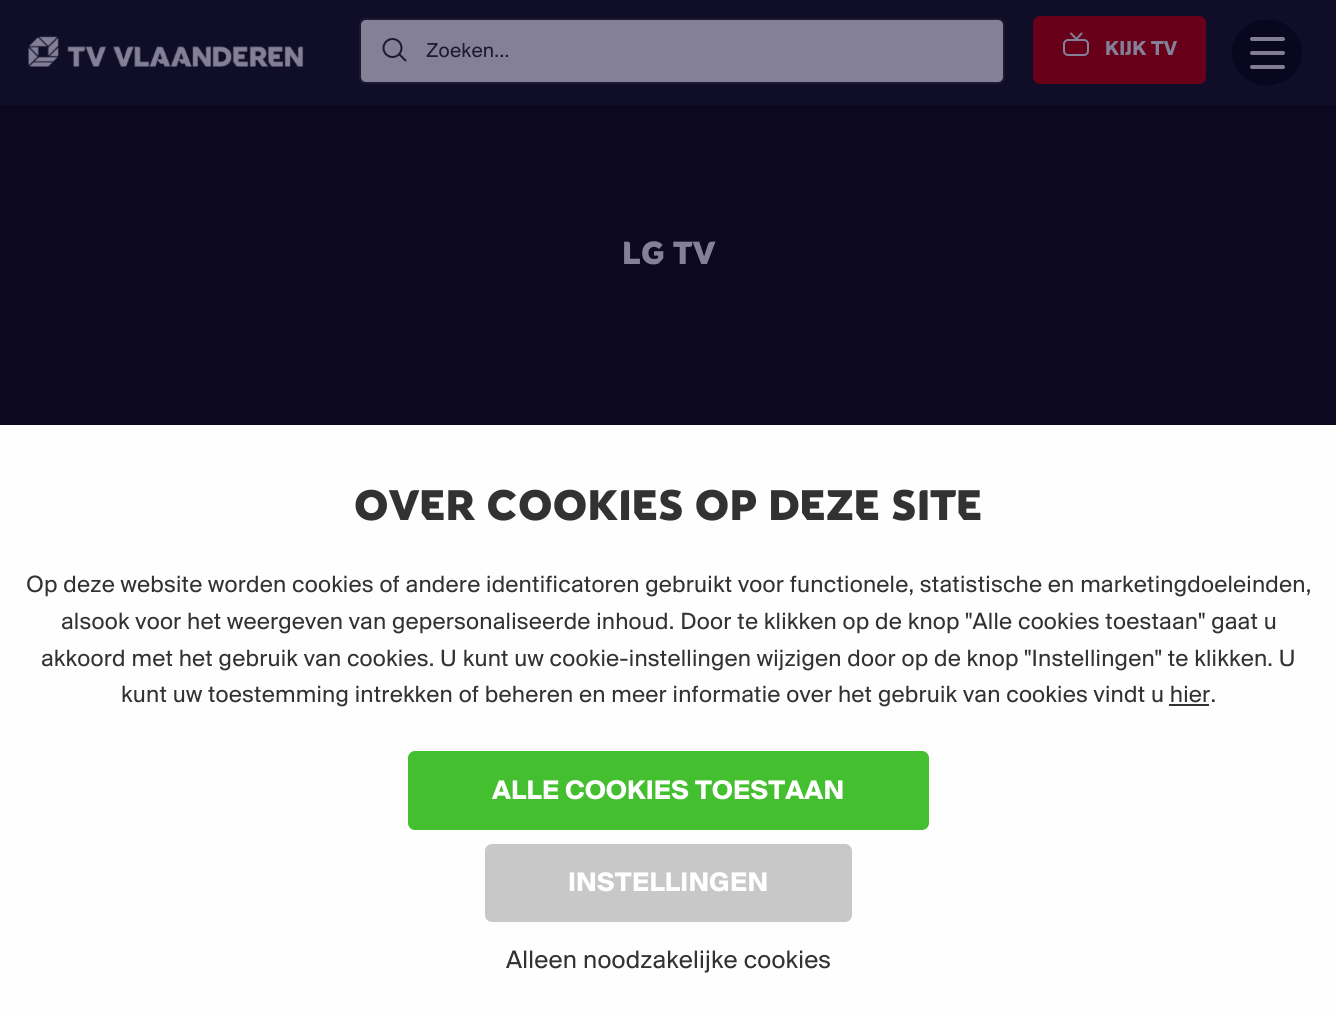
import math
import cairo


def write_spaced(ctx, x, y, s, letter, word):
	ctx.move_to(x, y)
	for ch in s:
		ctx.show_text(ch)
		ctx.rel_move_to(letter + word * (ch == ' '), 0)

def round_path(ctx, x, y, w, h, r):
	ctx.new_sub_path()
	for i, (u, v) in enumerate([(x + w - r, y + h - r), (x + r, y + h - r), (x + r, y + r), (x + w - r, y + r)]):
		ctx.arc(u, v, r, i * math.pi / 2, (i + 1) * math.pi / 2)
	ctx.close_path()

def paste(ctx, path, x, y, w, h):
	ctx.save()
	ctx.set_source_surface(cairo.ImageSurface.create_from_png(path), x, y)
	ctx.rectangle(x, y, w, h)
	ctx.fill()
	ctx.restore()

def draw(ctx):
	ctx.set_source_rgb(0.047, 0.035, 0.129)
	ctx.paint()
	ctx.set_source_rgb(0.059, 0.051, 0.153)
	ctx.rectangle(0, 0, 1336, 105)
	ctx.fill()
	paste(ctx, 'media/1.png', 28, 36, 276, 31)
	ctx.set_source_rgb(0.514, 0.502, 0.596)
	round_path(ctx, 360, 19, 644, 64, 6)
	ctx.fill_preserve()
	ctx.set_source_rgb(0.114, 0.098, 0.196)
	ctx.stroke()
	ctx.arc(392.5, 48, 9, 0, 2 * math.pi)
	ctx.stroke()
	ctx.new_path()
	ctx.move_to(405.5, 60.5)
	ctx.line_to(399.5, 54.5)
	ctx.set_line_cap(cairo.LINE_CAP_ROUND)
	ctx.set_line_join(cairo.LINE_JOIN_ROUND)
	ctx.stroke()
	ctx.select_font_face('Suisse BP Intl')
	ctx.set_font_size(21)
	write_spaced(ctx, 426, 57, 'Zoeken...', 0.25, 0)
	ctx.set_source_rgb(0.408, 0, 0.098)
	round_path(ctx, 1033, 16, 173, 68, 7)
	ctx.fill()
	round_path(ctx, 1064, 40, 24, 15, 4)
	ctx.set_source_rgb(0.514, 0.502, 0.596)
	ctx.set_line_cap(cairo.LINE_CAP_BUTT)
	ctx.set_line_join(cairo.LINE_JOIN_MITER)
	ctx.stroke()
	ctx.new_path()
	ctx.move_to(1081.5, 33.5)
	ctx.line_to(1076.5, 39)
	ctx.line_to(1071, 33.5)
	ctx.set_line_cap(cairo.LINE_CAP_ROUND)
	ctx.set_line_join(cairo.LINE_JOIN_ROUND)
	ctx.stroke()
	ctx.select_font_face('Suisse BP Intl', cairo.FONT_SLANT_NORMAL, cairo.FONT_WEIGHT_BOLD)
	write_spaced(ctx, 1105, 55, 'KIJK TV', 0.25, 0)
	ctx.set_source_rgb(0.039, 0.027, 0.122)
	ctx.new_path()
	ctx.move_to(1267, 19.5)
	ctx.curve_to(1286.5, 19.5, 1302, 34.5, 1302, 52.5)
	ctx.curve_to(1302, 70.5, 1286.5, 85.5, 1267, 85.5)
	ctx.curve_to(1247.5, 85.5, 1232, 70.5, 1232, 52.5)
	ctx.curve_to(1232, 34.5, 1247.5, 19.5, 1267, 19.5)
	ctx.close_path()
	ctx.fill()
	ctx.set_source_rgb(0.506, 0.49, 0.588)
	round_path(ctx, 1250, 37, 35, 4, 2)
	ctx.fill()
	round_path(ctx, 1250, 51, 35, 4, 2)
	ctx.fill()
	round_path(ctx, 1250, 65, 35, 4, 2)
	ctx.fill()
	ctx.select_font_face('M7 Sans')
	ctx.set_font_size(31.5)
	ctx.set_source_rgb(0.514, 0.502, 0.596)
	write_spaced(ctx, 622, 264, 'LG TV', 0.25, 0)
	ctx.set_source_rgb(0.996, 0.996, 0.996)
	ctx.rectangle(0, 425, 1336, 586)
	ctx.fill()
	ctx.set_font_size(42)
	ctx.set_source_rgb(0.196, 0.196, 0.196)
	write_spaced(ctx, 354, 520, 'OVER COOKIES OP DEZE SITE', 0.25, 0)
	ctx.select_font_face('Suisse BP Intl')
	ctx.set_font_size(24.5)
	for x, y, s in [
		(26, 592, 'Op deze website worden cookies of andere identificatoren gebruikt voor functionele, statistische en marketingdoeleinden,'),
		(61, 629, 'alsook voor het weergeven van gepersonaliseerde inhoud. Door te klikken op de knop "Alle cookies toestaan" gaat u'),
		(41, 666, 'akkoord met het gebruik van cookies. U kunt uw cookie-instellingen wijzigen door op de knop "Instellingen" te klikken. U'),
		(121, 702, 'kunt uw toestemming intrekken of beheren en meer informatie over het gebruik van cookies vindt u hier.'),
	]:
		write_spaced(ctx, x, y, s, 0.25, 0)
	ctx.rectangle(1169, 704, 40, 2)
	ctx.fill()
	ctx.set_source_rgb(0.267, 0.749, 0.184)
	round_path(ctx, 408, 751, 521, 79, 7)
	ctx.fill()
	ctx.select_font_face('Suisse BP Intl', cairo.FONT_SLANT_NORMAL, cairo.FONT_WEIGHT_BOLD)
	ctx.set_font_size(28)
	ctx.set_source_rgb(1, 1, 1)
	write_spaced(ctx, 492, 799, 'ALLE COOKIES TOESTAAN', 0.25, 0)
	ctx.set_source_rgb(0.784, 0.784, 0.784)
	round_path(ctx, 485, 844, 367, 78, 7)
	ctx.fill()
	ctx.set_source_rgb(1, 1, 1)
	write_spaced(ctx, 568, 891, 'INSTELLINGEN', 0.25, 0)
	ctx.select_font_face('Suisse BP Intl')
	ctx.set_font_size(26.25)
	ctx.set_source_rgb(0.196, 0.196, 0.196)
	write_spaced(ctx, 506, 968, 'Alleen noodzakelijke cookies', 0.25, 0)


surface = cairo.ImageSurface(cairo.FORMAT_RGB24, 1336, 1011)
ctx = cairo.Context(surface)
options = cairo.FontOptions()
options.set_hint_metrics(cairo.HINT_METRICS_OFF)
options.set_hint_style(cairo.HINT_STYLE_NONE)
ctx.set_font_options(options)
ctx.set_miter_limit(4)
draw(ctx)
surface.write_to_png('image.png')
